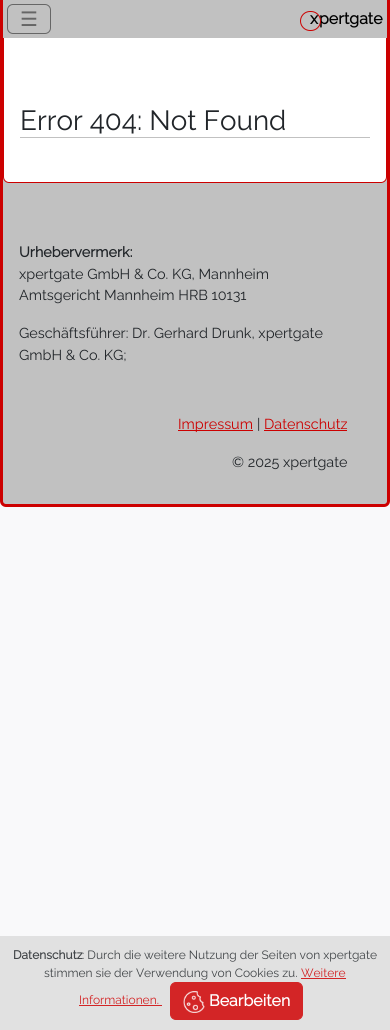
import math
import cairo


def round_path(ctx, x, y, w, h, r):
	ctx.new_sub_path()
	for i, (u, v) in enumerate([(x + w - r, y + h - r), (x + r, y + h - r), (x + r, y + r), (x + w - r, y + r)]):
		ctx.arc(u, v, r, i * math.pi / 2, (i + 1) * math.pi / 2)
	ctx.close_path()

def paste(ctx, path, x, y, w, h):
	ctx.save()
	ctx.set_source_surface(cairo.ImageSurface.create_from_png(path), x, y)
	ctx.rectangle(x, y, w, h)
	ctx.fill()
	ctx.restore()

def draw(ctx):
	ctx.set_source_rgb(0.973, 0.976, 0.98)
	ctx.paint()
	ctx.set_source_rgb(0.757, 0.757, 0.757)
	ctx.new_path()
	ctx.move_to(1.5, 1.5)
	ctx.line_to(388.5, 1.5)
	ctx.line_to(388.5, 501)
	ctx.curve_to(388.5, 503.5, 386.5, 505.5, 384, 505.5)
	ctx.line_to(6, 505.5)
	ctx.curve_to(3.5, 505.5, 1.5, 503.5, 1.5, 501)
	ctx.close_path()
	ctx.fill_preserve()
	ctx.set_source_rgb(0.8, 0, 0)
	ctx.set_line_width(3)
	ctx.stroke()
	ctx.set_source_rgb(1, 1, 1)
	ctx.new_path()
	ctx.move_to(3.5, 3.5)
	ctx.line_to(386.5, 3.5)
	ctx.line_to(386.5, 177)
	ctx.curve_to(386.5, 180, 384, 182.5, 381, 182.5)
	ctx.line_to(9, 182.5)
	ctx.curve_to(6, 182.5, 3.5, 180, 3.5, 177)
	ctx.close_path()
	ctx.fill_preserve()
	ctx.set_source_rgb(0.8, 0, 0)
	ctx.set_line_width(1)
	ctx.stroke()
	ctx.set_source_rgb(0.757, 0.757, 0.757)
	ctx.rectangle(3, 0, 384, 38)
	ctx.fill()
	round_path(ctx, 7.5, 4.5, 43, 29, 5.5)
	ctx.set_source_rgb(0.4, 0.4, 0.4)
	ctx.stroke()
	ctx.select_font_face('DejaVu Sans')
	ctx.set_font_size(20)
	ctx.move_to(20, 26)
	ctx.show_text('☰')
	ctx.select_font_face('Raleway', cairo.FONT_SLANT_NORMAL, cairo.FONT_WEIGHT_BOLD)
	ctx.set_font_size(16)
	ctx.set_source_rgb(0, 0, 0)
	ctx.move_to(319, 24)
	ctx.show_text('pertgate')
	round_path(ctx, 300.5, 11.5, 20, 19, 9.5)
	ctx.set_source_rgb(0.8, 0, 0)
	ctx.stroke()
	ctx.set_source_rgb(0, 0, 0)
	ctx.move_to(310, 24)
	ctx.show_text('x')
	ctx.set_source_rgb(0.757, 0.757, 0.757)
	ctx.rectangle(20, 137, 350, 1)
	ctx.fill()
	ctx.select_font_face('Raleway')
	ctx.set_font_size(27.75)
	ctx.set_source_rgb(0.129, 0.145, 0.161)
	ctx.move_to(20, 130)
	ctx.show_text('Error 404: Not Found')
	ctx.select_font_face('Raleway', cairo.FONT_SLANT_NORMAL, cairo.FONT_WEIGHT_BOLD)
	ctx.set_font_size(14.4)
	ctx.move_to(19, 257)
	ctx.show_text('Urhebervermerk:')
	ctx.select_font_face('Raleway')
	for x, y, s in [
		(19, 279, 'xpertgate GmbH & Co. KG, Mannheim'),
		(19, 300, 'Amtsgericht Mannheim HRB 10131'),
		(19, 338, 'Geschäftsführer: Dr. Gerhard Drunk, xpertgate'),
		(19, 360, 'GmbH & Co. KG;'),
	]:
		ctx.move_to(x, y)
		ctx.show_text(s)
	ctx.set_source_rgb(0.8, 0, 0)
	ctx.rectangle(178, 430, 75, 1)
	ctx.fill()
	ctx.move_to(178, 429)
	ctx.show_text('Impressum')
	ctx.set_source_rgb(0.129, 0.145, 0.161)
	ctx.move_to(257, 429)
	ctx.show_text('|')
	ctx.set_source_rgb(0.8, 0, 0)
	ctx.move_to(264, 429)
	ctx.show_text('Datenschutz')
	ctx.rectangle(264, 430, 83, 1)
	ctx.fill()
	ctx.set_source_rgb(0.129, 0.145, 0.161)
	ctx.move_to(232, 467)
	ctx.show_text('© 2025 xpertgate')
	ctx.set_source_rgb(0.882, 0.882, 0.882)
	ctx.rectangle(0, 936, 390, 94)
	ctx.fill()
	ctx.select_font_face('Raleway', cairo.FONT_SLANT_NORMAL, cairo.FONT_WEIGHT_BOLD)
	ctx.set_font_size(12)
	ctx.set_source_rgb(0.255, 0.271, 0.282)
	ctx.move_to(13, 959)
	ctx.show_text('Datenschutz')
	ctx.select_font_face('Raleway')
	ctx.move_to(82, 959)
	ctx.show_text(': Durch die weitere Nutzung der Seiten von xpertgate')
	ctx.move_to(44, 977)
	ctx.show_text('stimmen sie der Verwendung von Cookies zu.')
	ctx.set_source_rgb(0.827, 0.145, 0.149)
	ctx.move_to(301, 977)
	ctx.show_text('Weitere')
	ctx.rectangle(301, 978, 45, 1)
	ctx.fill()
	ctx.move_to(79, 1004)
	ctx.show_text('Informationen.')
	ctx.rectangle(79, 1005, 83, 1)
	ctx.fill()
	round_path(ctx, 170.5, 982.5, 132, 37, 5.5)
	ctx.fill_preserve()
	ctx.stroke()
	paste(ctx, 'media/1.png', 183, 991, 22, 22)
	ctx.select_font_face('Raleway', cairo.FONT_SLANT_NORMAL, cairo.FONT_WEIGHT_BOLD)
	ctx.set_font_size(16)
	ctx.set_source_rgb(0.996, 0.996, 0.996)
	ctx.move_to(209, 1006)
	ctx.show_text('Bearbeiten')


surface = cairo.ImageSurface(cairo.FORMAT_RGB24, 390, 1030)
ctx = cairo.Context(surface)
options = cairo.FontOptions()
options.set_hint_metrics(cairo.HINT_METRICS_OFF)
options.set_hint_style(cairo.HINT_STYLE_NONE)
ctx.set_font_options(options)
ctx.set_miter_limit(4)
draw(ctx)
surface.write_to_png('image.png')
